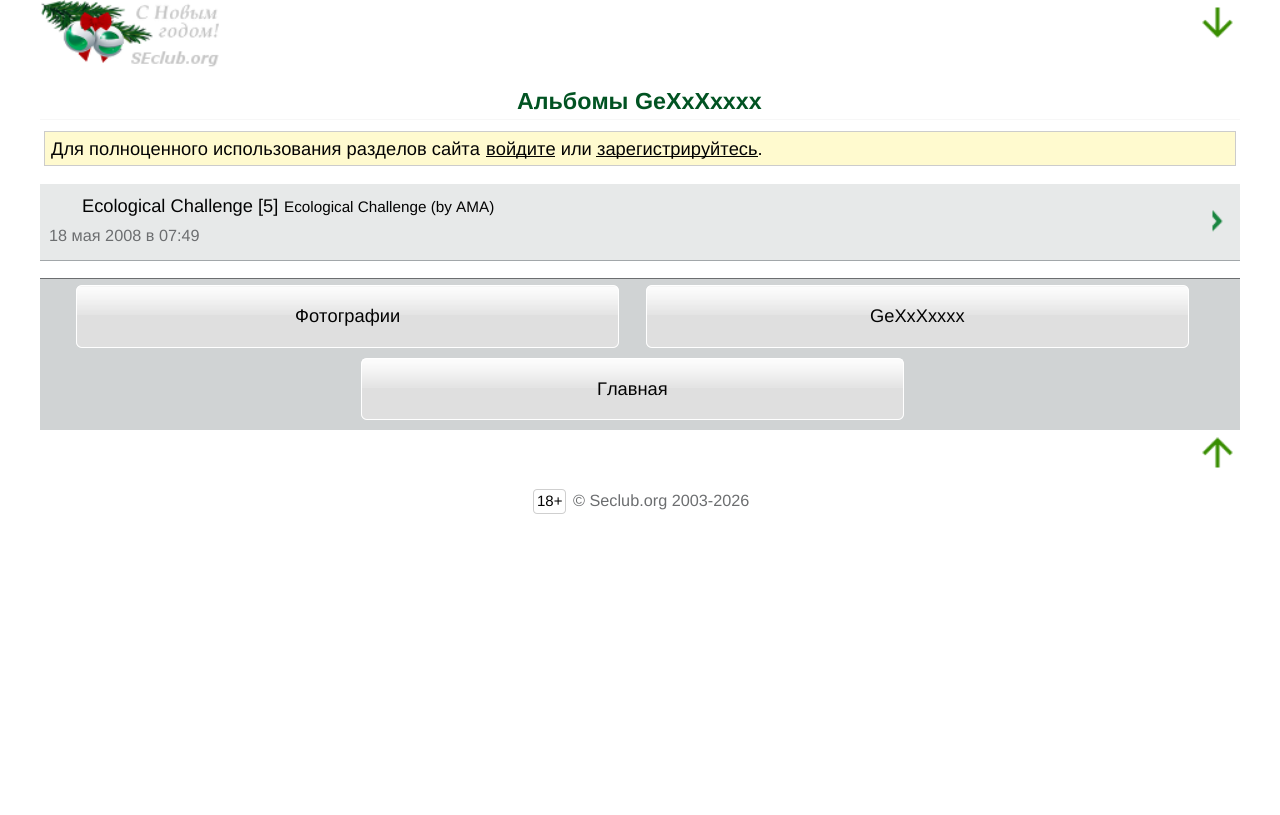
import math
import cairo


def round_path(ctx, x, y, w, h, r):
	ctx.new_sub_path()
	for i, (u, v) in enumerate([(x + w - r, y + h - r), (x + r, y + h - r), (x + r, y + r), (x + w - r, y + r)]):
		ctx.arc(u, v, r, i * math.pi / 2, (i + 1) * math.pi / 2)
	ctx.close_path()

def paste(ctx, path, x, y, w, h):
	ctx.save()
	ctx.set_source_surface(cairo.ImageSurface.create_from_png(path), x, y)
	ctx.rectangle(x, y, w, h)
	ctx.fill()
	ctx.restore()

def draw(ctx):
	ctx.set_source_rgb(1, 1, 1)
	ctx.paint()
	paste(ctx, 'media/1.png', 41, 0, 178, 67)
	paste(ctx, 'media/2.png', 1202, 7, 31, 31)
	ctx.set_source_rgb(0.965, 0.965, 0.965)
	ctx.rectangle(40, 119, 1200, 1)
	ctx.fill()
	ctx.select_font_face('Liberation Sans', cairo.FONT_SLANT_NORMAL, cairo.FONT_WEIGHT_BOLD)
	ctx.set_font_size(23.25)
	ctx.set_source_rgb(0.004, 0.325, 0.133)
	ctx.move_to(517, 109)
	ctx.show_text('Альбомы GeXxXxxxx')
	ctx.set_source_rgb(1, 0.98, 0.812)
	ctx.rectangle(44.5, 131.5, 1191, 34)
	ctx.fill_preserve()
	ctx.set_source_rgb(0.8, 0.8, 0.8)
	ctx.set_line_width(1)
	ctx.stroke()
	ctx.select_font_face('Liberation Sans')
	ctx.set_font_size(18.3)
	ctx.set_source_rgb(0.012, 0.012, 0.012)
	ctx.move_to(51, 155)
	ctx.show_text('Для полноценного использования разделов сайта')
	ctx.rectangle(486, 156, 69, 1)
	ctx.fill()
	ctx.move_to(486, 155)
	ctx.show_text('войдите или')
	ctx.rectangle(596, 156, 162, 1)
	ctx.fill()
	ctx.move_to(597, 155)
	ctx.show_text('зарегистрируйтесь.')
	ctx.set_source_rgb(0.906, 0.914, 0.914)
	ctx.rectangle(40, 184, 1200, 76)
	ctx.fill()
	ctx.set_source_rgb(0.635, 0.655, 0.667)
	ctx.rectangle(40, 260, 1200, 1)
	ctx.fill()
	paste(ctx, 'media/3.png', 1212, 210, 11, 22)
	ctx.set_source_rgb(0.012, 0.012, 0.012)
	ctx.move_to(82, 212)
	ctx.show_text('Ecological Challenge [5]')
	ctx.set_font_size(15.25)
	ctx.move_to(284, 212)
	ctx.show_text('Ecological Challenge (by AMA)')
	ctx.set_font_size(16.25)
	ctx.set_source_rgb(0.424, 0.431, 0.439)
	ctx.move_to(49, 241)
	ctx.show_text('18 мая 2008 в 07:49')
	ctx.set_source_rgb(0.816, 0.827, 0.831)
	ctx.rectangle(40, 279, 1200, 151)
	ctx.fill()
	ctx.set_source_rgb(0.424, 0.431, 0.439)
	ctx.rectangle(40, 278, 1200, 1)
	ctx.fill()
	ctx.set_source_rgb(0.875, 0.875, 0.875)
	round_path(ctx, 76, 285, 543, 63, 6)
	ctx.fill()
	paste(ctx, 'media/4.png', 76, 286, 543, 29)
	round_path(ctx, 76.5, 285.5, 542, 62, 5.5)
	ctx.set_source_rgb(1, 1, 1)
	ctx.stroke()
	ctx.set_font_size(18.3)
	ctx.set_source_rgb(0.012, 0.012, 0.012)
	ctx.move_to(295, 322)
	ctx.show_text('Фотографии')
	ctx.set_source_rgb(0.875, 0.875, 0.875)
	round_path(ctx, 646, 285, 543, 63, 6)
	ctx.fill()
	paste(ctx, 'media/4.png', 646, 286, 543, 29)
	round_path(ctx, 646.5, 285.5, 542, 62, 5.5)
	ctx.set_source_rgb(1, 1, 1)
	ctx.stroke()
	ctx.set_source_rgb(0.012, 0.012, 0.012)
	ctx.move_to(870, 322)
	ctx.show_text('GeXxXxxxx')
	ctx.set_source_rgb(0.875, 0.875, 0.875)
	round_path(ctx, 361, 358, 543, 62, 6)
	ctx.fill()
	paste(ctx, 'media/5.png', 361, 358, 543, 30)
	round_path(ctx, 361.5, 358.5, 542, 61, 5.5)
	ctx.set_source_rgb(1, 1, 1)
	ctx.stroke()
	ctx.set_source_rgb(0.012, 0.012, 0.012)
	ctx.move_to(597, 395)
	ctx.show_text('Главная')
	paste(ctx, 'media/6.png', 1202, 437, 31, 31)
	round_path(ctx, 533.5, 489.5, 32, 24, 3.5)
	ctx.set_source_rgb(0.812, 0.812, 0.812)
	ctx.stroke()
	ctx.set_font_size(15)
	ctx.set_source_rgb(0.012, 0.012, 0.012)
	ctx.move_to(537, 506)
	ctx.show_text('18+')
	ctx.set_font_size(16.25)
	ctx.set_source_rgb(0.424, 0.431, 0.439)
	ctx.move_to(573, 506)
	ctx.show_text('© Seclub.org 2003-2026')


surface = cairo.ImageSurface(cairo.FORMAT_RGB24, 1280, 815)
ctx = cairo.Context(surface)
options = cairo.FontOptions()
options.set_hint_metrics(cairo.HINT_METRICS_OFF)
options.set_hint_style(cairo.HINT_STYLE_NONE)
ctx.set_font_options(options)
ctx.set_miter_limit(4)
draw(ctx)
surface.write_to_png('image.png')
